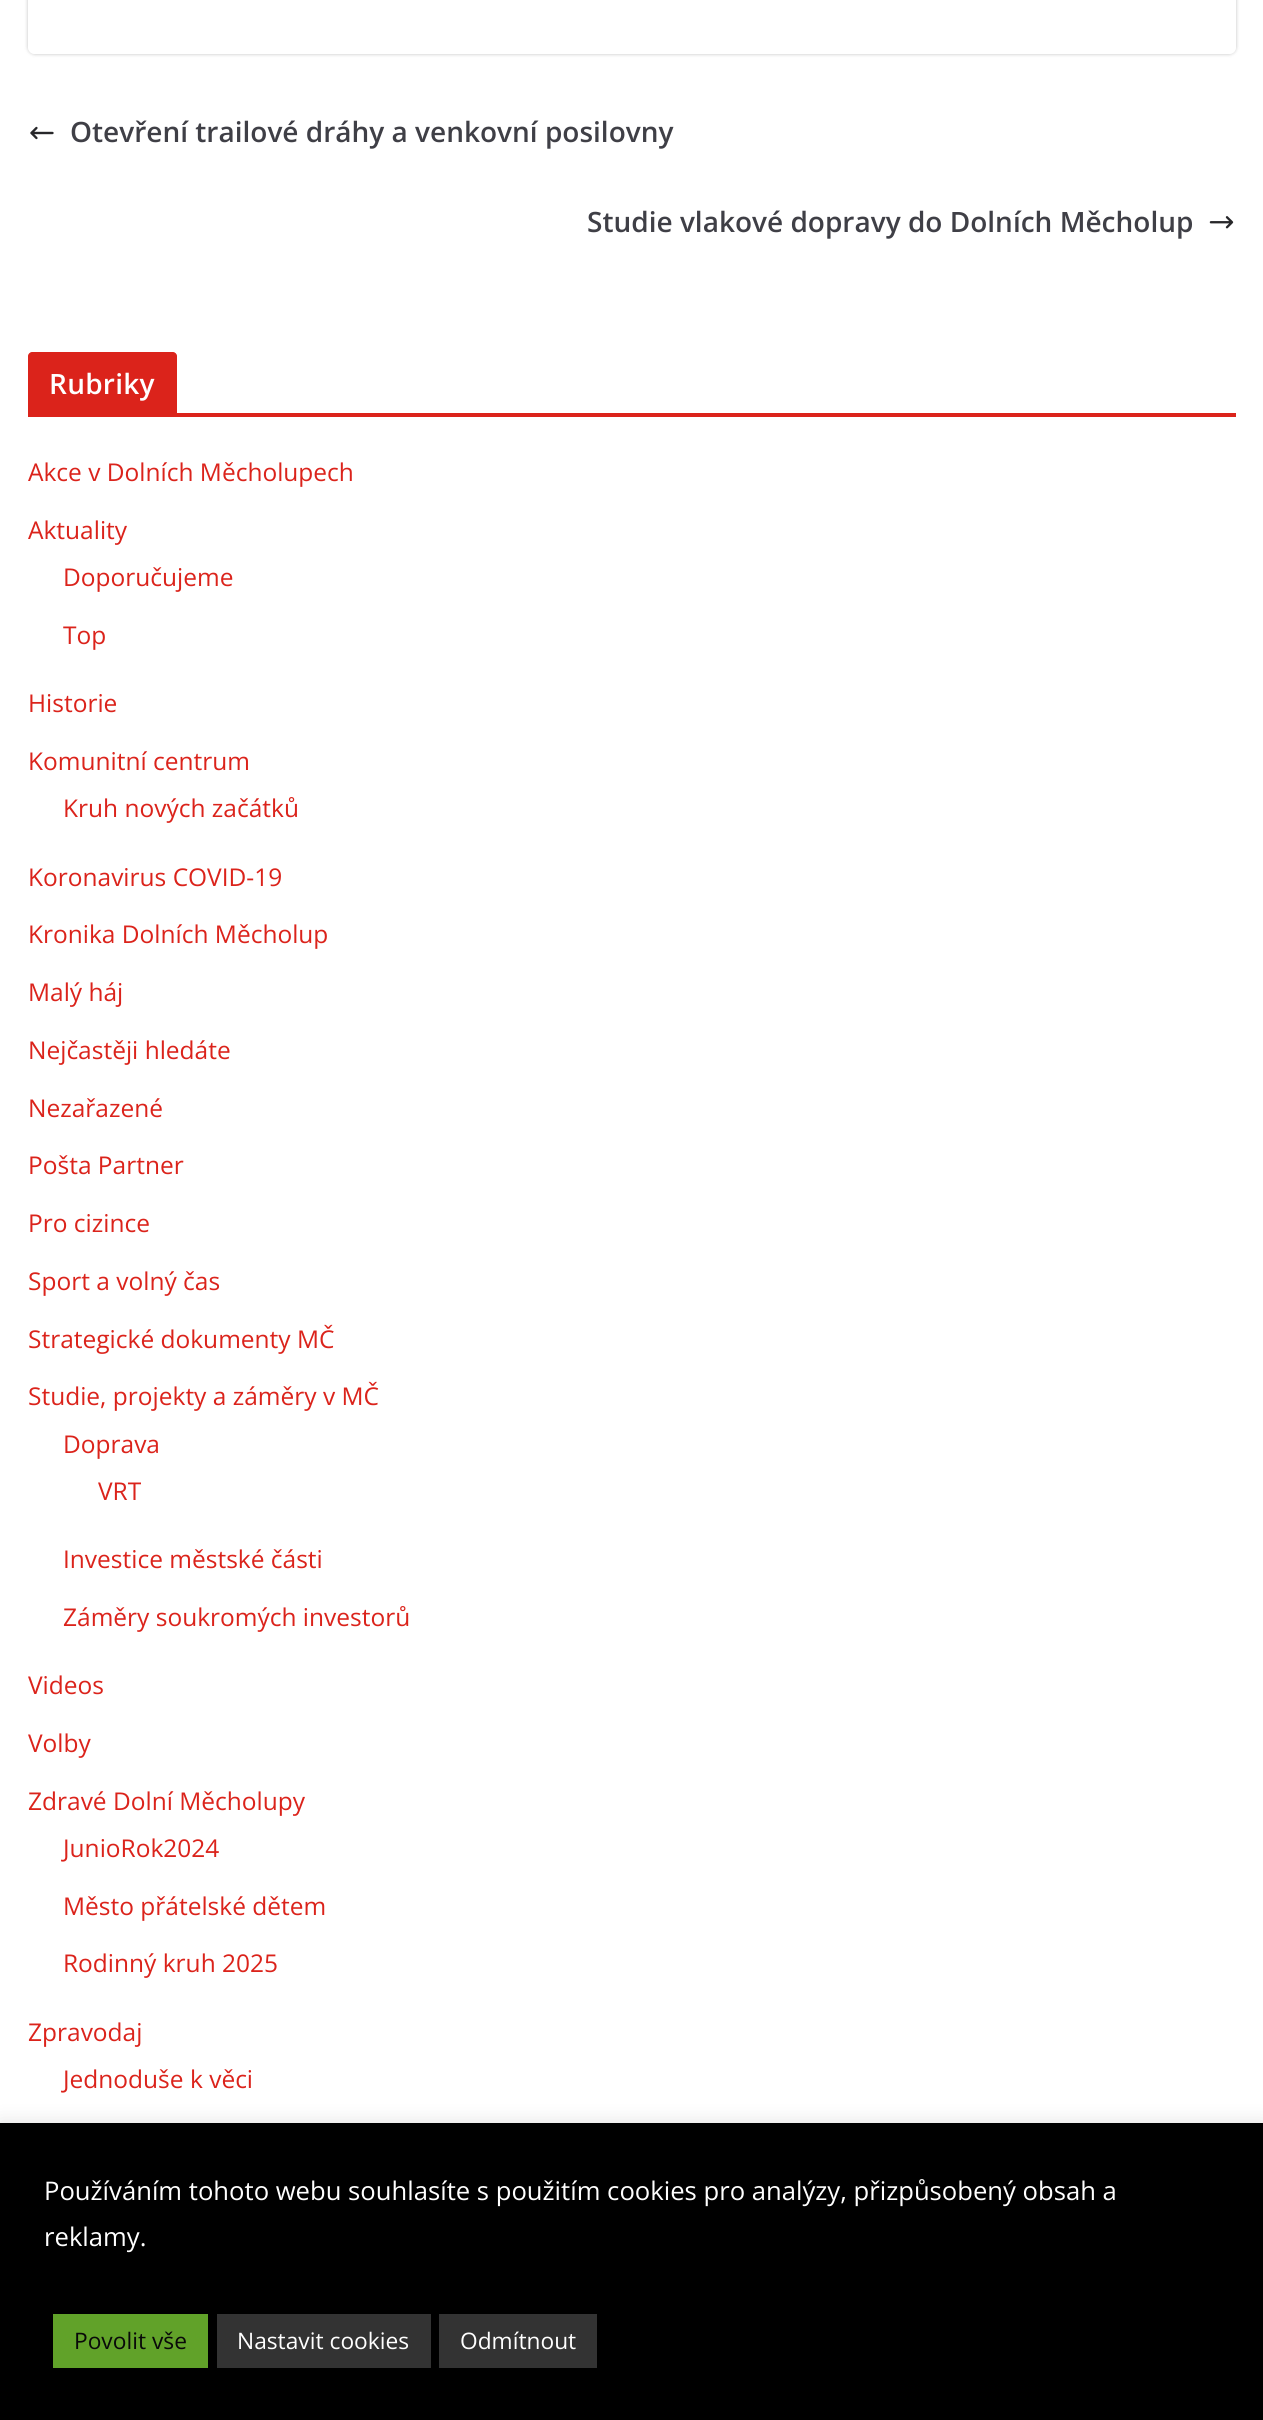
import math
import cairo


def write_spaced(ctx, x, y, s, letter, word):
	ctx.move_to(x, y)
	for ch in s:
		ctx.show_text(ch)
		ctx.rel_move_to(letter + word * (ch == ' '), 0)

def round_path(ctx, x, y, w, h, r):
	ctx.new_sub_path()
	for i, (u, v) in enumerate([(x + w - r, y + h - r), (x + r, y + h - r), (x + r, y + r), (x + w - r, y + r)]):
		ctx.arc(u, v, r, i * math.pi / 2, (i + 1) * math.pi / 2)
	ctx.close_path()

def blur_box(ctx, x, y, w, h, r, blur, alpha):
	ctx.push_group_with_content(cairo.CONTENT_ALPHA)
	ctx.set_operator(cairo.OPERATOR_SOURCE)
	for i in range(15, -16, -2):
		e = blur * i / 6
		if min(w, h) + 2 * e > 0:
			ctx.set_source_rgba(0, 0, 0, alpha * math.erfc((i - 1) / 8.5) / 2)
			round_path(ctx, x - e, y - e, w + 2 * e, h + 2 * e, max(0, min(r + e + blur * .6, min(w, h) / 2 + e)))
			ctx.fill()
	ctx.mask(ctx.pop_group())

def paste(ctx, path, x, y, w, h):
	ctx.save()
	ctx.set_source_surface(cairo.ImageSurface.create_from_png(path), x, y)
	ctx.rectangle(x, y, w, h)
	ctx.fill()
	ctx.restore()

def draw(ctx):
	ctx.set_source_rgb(1, 1, 1)
	ctx.paint()
	ctx.save()
	ctx.set_fill_rule(cairo.FILL_RULE_EVEN_ODD)
	ctx.new_path()
	ctx.move_to(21, 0)
	ctx.line_to(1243, 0)
	ctx.line_to(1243, 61)
	ctx.line_to(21, 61)
	ctx.close_path()
	ctx.move_to(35, -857)
	ctx.line_to(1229, -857)
	ctx.curve_to(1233, -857, 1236, -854, 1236, -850)
	ctx.line_to(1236, 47)
	ctx.curve_to(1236, 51, 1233, 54, 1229, 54)
	ctx.line_to(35, 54)
	ctx.curve_to(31, 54, 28, 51, 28, 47)
	ctx.line_to(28, -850)
	ctx.curve_to(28, -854, 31, -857, 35, -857)
	ctx.close_path()
	ctx.clip()
	ctx.set_source_rgb(0, 0, 0)
	blur_box(ctx, 28, -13, 1208, 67, 7, 2, 0.24)
	ctx.restore()
	paste(ctx, 'media/1.png', 30, 126, 24, 14)
	ctx.select_font_face('Open Sans SemiBold')
	ctx.set_font_size(28)
	ctx.set_source_rgb(0.247, 0.247, 0.275)
	ctx.move_to(70, 142)
	ctx.show_text('Otevření trailové dráhy a venkovní posilovny')
	ctx.move_to(587, 232)
	ctx.show_text('Studie vlakové dopravy do Dolních Měcholup')
	paste(ctx, 'media/2.png', 1209, 216, 25, 13)
	ctx.set_source_rgb(0.859, 0.137, 0.106)
	ctx.rectangle(28, 413, 1208, 4)
	ctx.fill()
	ctx.new_path()
	ctx.move_to(32, 352)
	ctx.line_to(173, 352)
	ctx.curve_to(175, 352, 177, 354, 177, 356)
	ctx.line_to(177, 413)
	ctx.line_to(28, 413)
	ctx.line_to(28, 356)
	ctx.curve_to(28, 354, 30, 352, 32, 352)
	ctx.close_path()
	ctx.fill()
	ctx.set_source_rgb(1, 1, 1)
	write_spaced(ctx, 49, 394, 'Rubriky', 0.25, 0)
	ctx.select_font_face('Open Sans')
	ctx.set_font_size(24.5)
	ctx.set_source_rgb(0.859, 0.137, 0.106)
	for x, y, s in [
		(28, 481, 'Akce v Dolních Měcholupech'),
		(28, 539, 'Aktuality'),
		(63, 586, 'Doporučujeme'),
		(63, 644, 'Top'),
		(28, 712, 'Historie'),
		(28, 770, 'Komunitní centrum'),
		(63, 817, 'Kruh nových začátků'),
		(28, 886, 'Koronavirus COVID-19'),
		(28, 943, 'Kronika Dolních Měcholup'),
		(28, 1001, 'Malý háj'),
		(28, 1059, 'Nejčastěji hledáte'),
		(28, 1117, 'Nezařazené'),
		(28, 1174, 'Pošta Partner'),
		(28, 1232, 'Pro cizince'),
		(28, 1290, 'Sport a volný čas'),
		(28, 1348, 'Strategické dokumenty MČ'),
		(28, 1405, 'Studie, projekty a záměry v MČ'),
		(63, 1453, 'Doprava'),
		(98, 1500, 'VRT'),
		(63, 1568, 'Investice městské části'),
		(63, 1626, 'Záměry soukromých investorů'),
		(28, 1694, 'Videos'),
		(28, 1752, 'Volby'),
		(28, 1810, 'Zdravé Dolní Měcholupy'),
		(63, 1857, 'JunioRok2024'),
		(63, 1915, 'Město přátelské dětem'),
		(63, 1972, 'Rodinný kruh 2025'),
		(28, 2041, 'Zpravodaj'),
		(63, 2088, 'Jednoduše k věci'),
	]:
		ctx.move_to(x, y)
		ctx.show_text(s)
	ctx.set_source_rgb(0.675, 0.671, 0.671)
	blur_box(ctx, 0, 2121, 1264, 298, 0, 9, 0.3)
	ctx.set_source_rgb(0, 0, 0)
	ctx.rectangle(0, 2123, 1263, 297)
	ctx.fill()
	ctx.set_font_size(25.65)
	ctx.set_source_rgb(1, 1, 1)
	ctx.move_to(44, 2200)
	ctx.show_text('Používáním tohoto webu souhlasíte s použitím cookies pro analýzy, přizpůsobený obsah a')
	ctx.move_to(44, 2246)
	ctx.show_text('reklamy.')
	ctx.set_source_rgb(0.38, 0.635, 0.161)
	ctx.rectangle(53, 2314, 155, 54)
	ctx.fill()
	ctx.set_font_size(22.75)
	ctx.set_source_rgb(0.039, 0.039, 0.039)
	ctx.move_to(74, 2349)
	ctx.show_text('Povolit vše')
	ctx.set_source_rgb(0.2, 0.2, 0.2)
	ctx.rectangle(217, 2314, 214, 54)
	ctx.fill()
	ctx.set_source_rgb(1, 1, 1)
	ctx.move_to(237, 2349)
	ctx.show_text('Nastavit cookies')
	ctx.set_source_rgb(0.2, 0.2, 0.2)
	ctx.rectangle(439, 2314, 158, 54)
	ctx.fill()
	ctx.set_source_rgb(1, 1, 1)
	ctx.move_to(460, 2349)
	ctx.show_text('Odmítnout')


surface = cairo.ImageSurface(cairo.FORMAT_RGB24, 1263, 2420)
ctx = cairo.Context(surface)
options = cairo.FontOptions()
options.set_hint_metrics(cairo.HINT_METRICS_OFF)
options.set_hint_style(cairo.HINT_STYLE_NONE)
ctx.set_font_options(options)
ctx.set_miter_limit(4)
draw(ctx)
surface.write_to_png('image.png')
